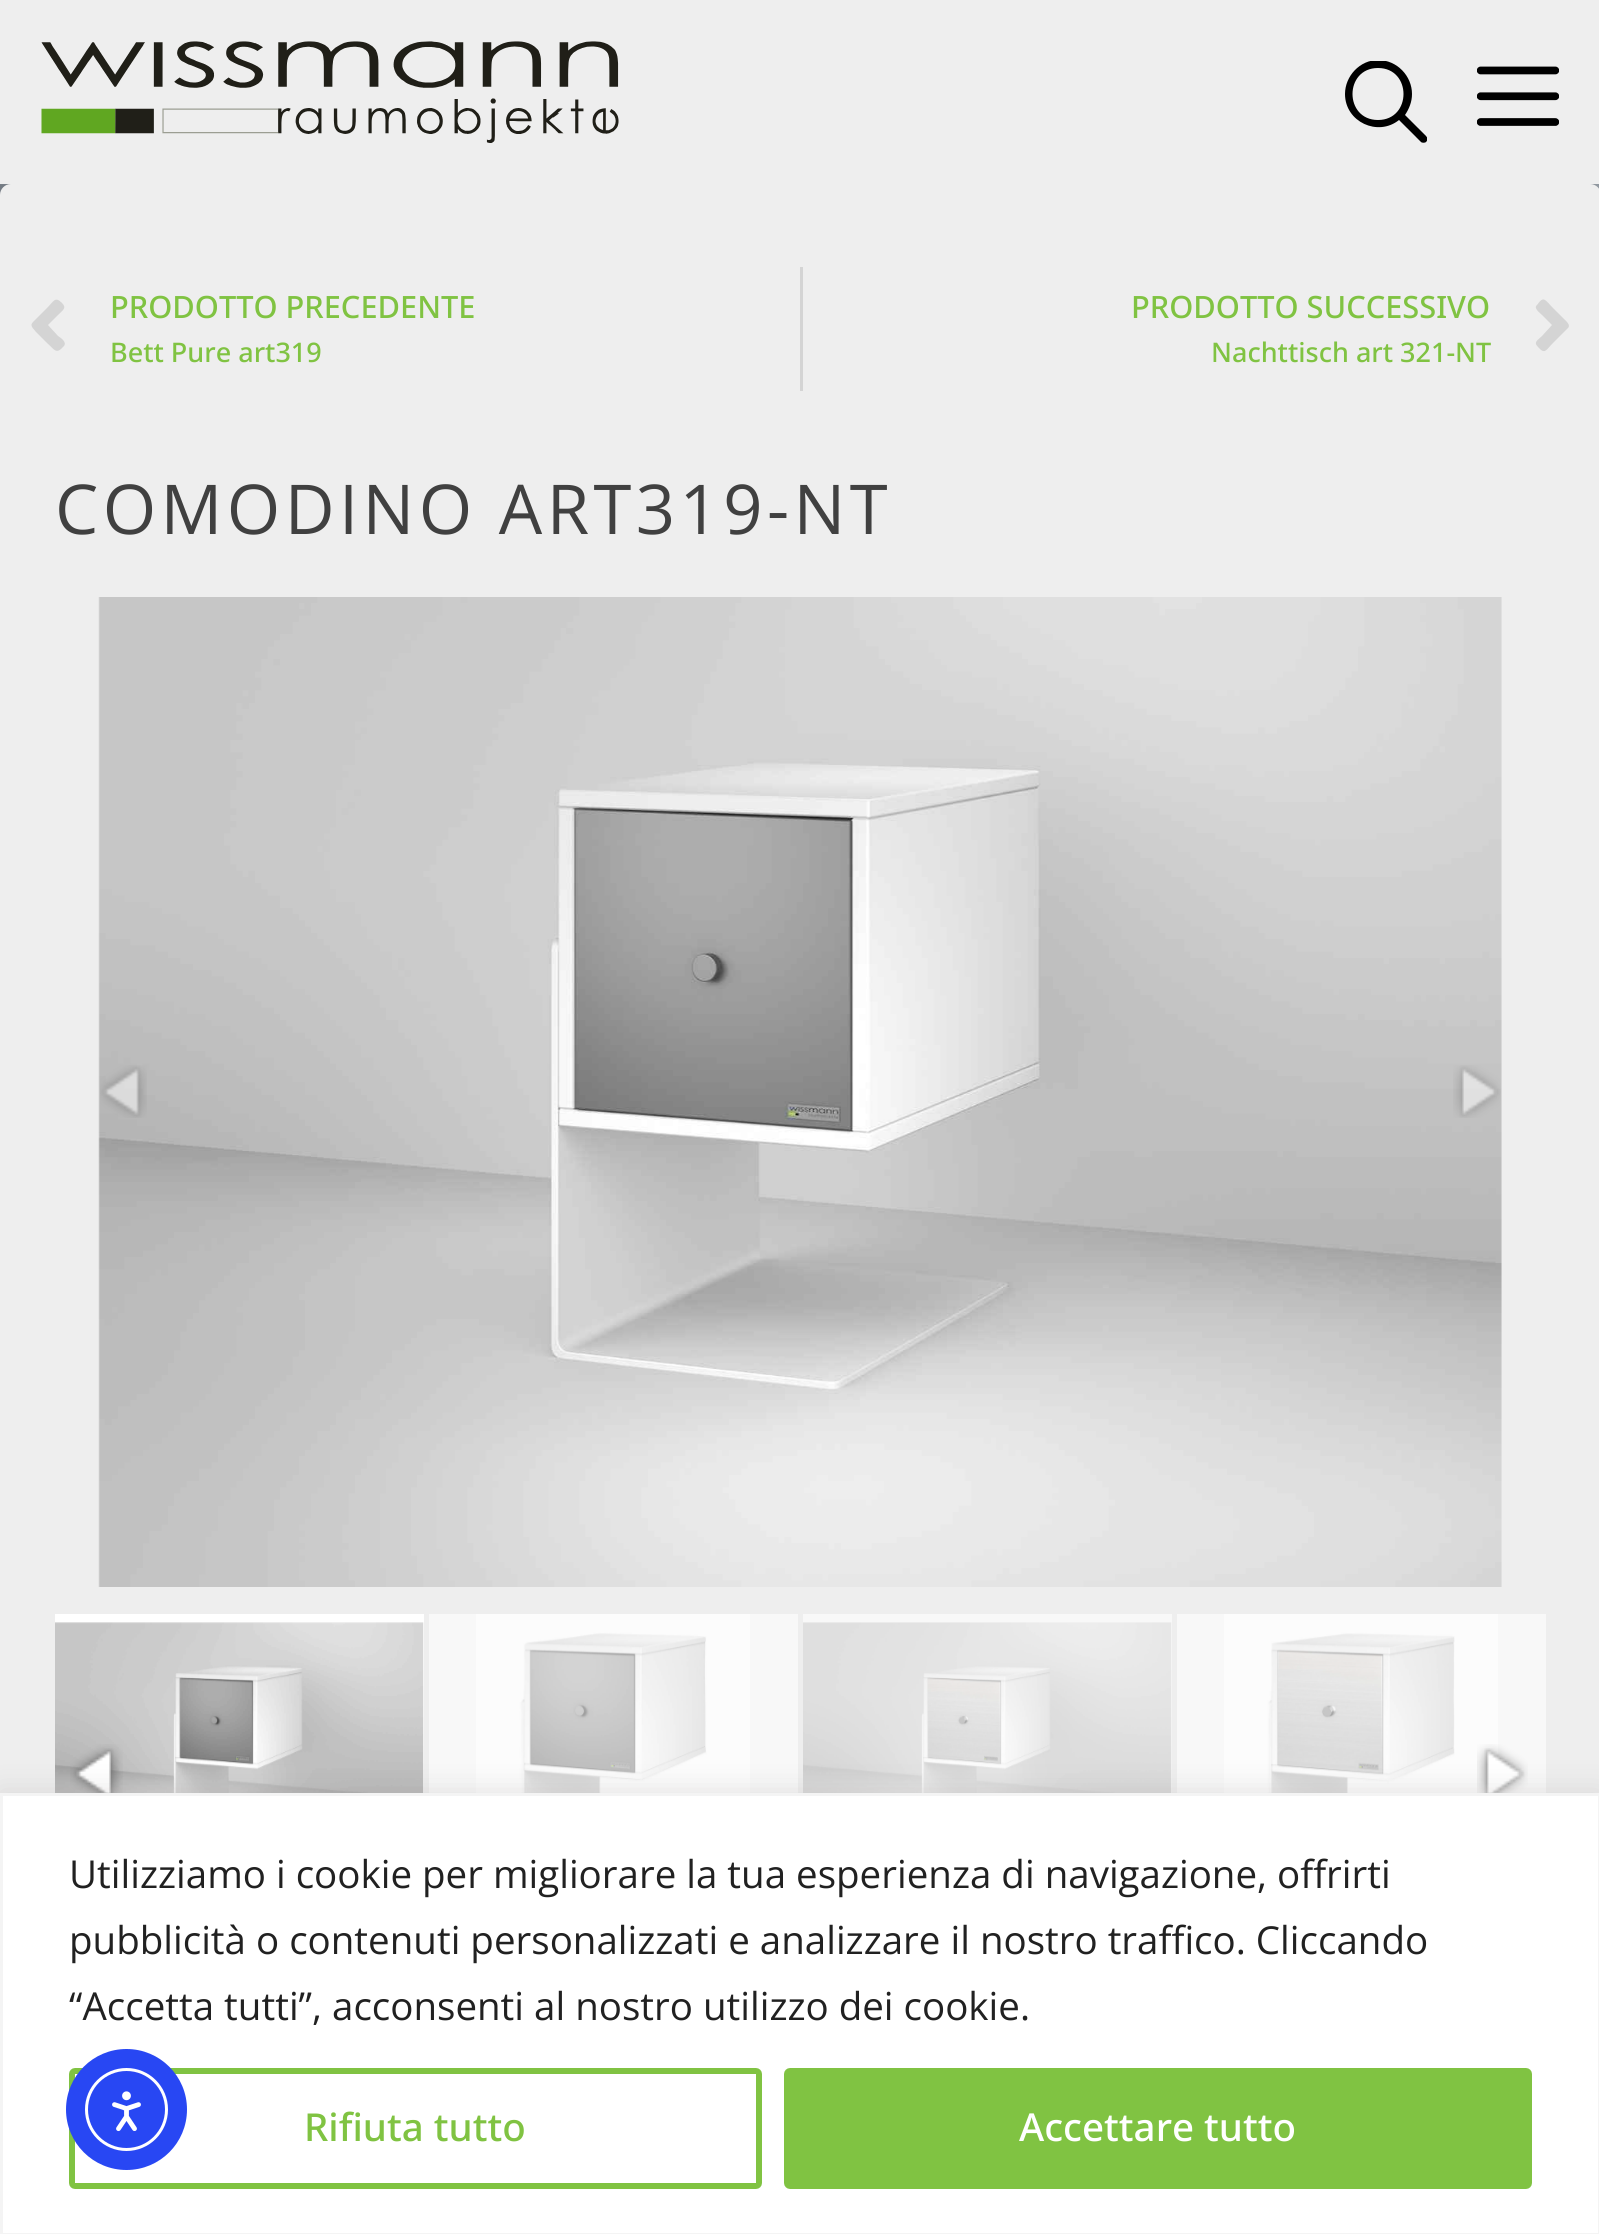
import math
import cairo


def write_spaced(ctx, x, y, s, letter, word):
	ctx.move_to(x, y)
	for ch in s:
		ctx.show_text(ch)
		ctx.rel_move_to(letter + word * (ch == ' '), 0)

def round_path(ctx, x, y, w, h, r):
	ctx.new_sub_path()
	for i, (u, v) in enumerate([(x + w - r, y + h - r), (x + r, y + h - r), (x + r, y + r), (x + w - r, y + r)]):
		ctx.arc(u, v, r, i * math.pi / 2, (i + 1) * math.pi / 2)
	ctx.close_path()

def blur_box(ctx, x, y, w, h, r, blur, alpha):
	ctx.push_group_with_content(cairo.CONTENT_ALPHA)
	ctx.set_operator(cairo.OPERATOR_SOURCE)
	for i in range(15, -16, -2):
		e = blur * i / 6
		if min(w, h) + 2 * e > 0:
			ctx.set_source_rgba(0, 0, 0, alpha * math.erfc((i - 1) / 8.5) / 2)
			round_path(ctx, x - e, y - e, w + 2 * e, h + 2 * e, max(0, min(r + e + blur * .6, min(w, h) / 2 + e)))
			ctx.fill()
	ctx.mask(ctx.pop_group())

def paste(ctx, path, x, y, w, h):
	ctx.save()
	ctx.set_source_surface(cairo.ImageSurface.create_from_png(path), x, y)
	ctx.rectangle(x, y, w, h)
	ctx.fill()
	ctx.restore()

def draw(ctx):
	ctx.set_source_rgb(1, 1, 1)
	ctx.paint()
	paste(ctx, 'media/1.png', 0, 184, 1599, 11)
	ctx.set_source_rgb(0.933, 0.933, 0.933)
	ctx.rectangle(0, 0, 1599, 184)
	ctx.fill()
	paste(ctx, 'media/2.png', 41, 41, 578, 102)
	ctx.save()
	ctx.rectangle(1345, 61, 82, 82)
	ctx.clip()
	ctx.set_source_rgb(0, 0, 0)
	ctx.set_fill_rule(cairo.FILL_RULE_EVEN_ODD)
	ctx.new_path()
	ctx.move_to(1378, 68)
	ctx.curve_to(1344, 68, 1344, 120, 1378, 120)
	ctx.curve_to(1412, 120, 1412, 68, 1378, 68)
	ctx.close_path()
	ctx.move_to(1345, 94)
	ctx.curve_to(1345, 76, 1360, 60, 1378, 60)
	ctx.curve_to(1397, 60, 1412, 76, 1412, 94)
	ctx.curve_to(1412, 102, 1409, 109, 1405, 115)
	ctx.line_to(1426, 136)
	ctx.curve_to(1428, 138, 1428, 140, 1426, 142)
	ctx.curve_to(1425, 143, 1422, 143, 1421, 142)
	ctx.line_to(1399, 120)
	ctx.curve_to(1378, 137, 1345, 122, 1345, 94)
	ctx.close_path()
	ctx.fill()
	ctx.restore()
	paste(ctx, 'media/3.png', 1477, 66, 82, 60)
	round_path(ctx, 0, 184, 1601, 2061, 11)
	ctx.fill()
	ctx.set_source_rgb(0.831, 0.831, 0.831)
	ctx.new_path()
	ctx.move_to(33, 322)
	ctx.line_to(47, 308)
	ctx.curve_to(54, 301, 55, 296, 62, 303)
	ctx.curve_to(67, 308, 63, 310, 58, 315)
	ctx.line_to(48, 325)
	ctx.line_to(58, 336)
	ctx.curve_to(61, 338, 67, 342, 64, 346)
	ctx.curve_to(56, 355, 55, 350, 47, 343)
	ctx.line_to(36, 332)
	ctx.curve_to(34, 329, 29, 326, 33, 322)
	ctx.close_path()
	ctx.fill()
	ctx.select_font_face('Noto Sans Medium')
	ctx.set_font_size(30.75)
	ctx.set_source_rgb(0.502, 0.765, 0.259)
	ctx.move_to(110, 318)
	ctx.show_text('PRODOTTO PRECEDENTE')
	ctx.set_font_size(27)
	ctx.move_to(110, 362)
	ctx.show_text('Bett Pure art319')
	ctx.set_source_rgb(0.831, 0.831, 0.831)
	ctx.rectangle(800, 267, 3, 124)
	ctx.fill()
	ctx.set_font_size(30.75)
	ctx.set_source_rgb(0.502, 0.765, 0.259)
	ctx.move_to(1131, 318)
	ctx.show_text('PRODOTTO SUCCESSIVO')
	ctx.set_font_size(27)
	ctx.move_to(1211, 362)
	ctx.show_text('Nachttisch art 321-NT')
	ctx.set_source_rgb(0.831, 0.831, 0.831)
	ctx.new_path()
	ctx.move_to(1568, 328)
	ctx.line_to(1553, 343)
	ctx.curve_to(1546, 350, 1545, 355, 1538, 347)
	ctx.curve_to(1533, 342, 1538, 340, 1542, 336)
	ctx.line_to(1552, 325)
	ctx.line_to(1542, 315)
	ctx.curve_to(1540, 313, 1533, 308, 1537, 305)
	ctx.curve_to(1544, 295, 1545, 300, 1553, 308)
	ctx.line_to(1564, 319)
	ctx.curve_to(1566, 321, 1571, 325, 1568, 328)
	ctx.close_path()
	ctx.fill()
	ctx.select_font_face('Open Sans')
	ctx.set_font_size(68.75)
	ctx.set_source_rgb(0.251, 0.251, 0.251)
	write_spaced(ctx, 55, 534, 'COMODINO ART319-NT', 4.4, 0)
	paste(ctx, 'media/4.png', 98, 597, 1404, 990)
	paste(ctx, 'media/5.png', 100, 1065, 47, 53)
	paste(ctx, 'media/6.png', 1453, 1065, 48, 53)
	ctx.set_source_rgb(1, 1, 1)
	ctx.rectangle(55, 1614, 369, 179)
	ctx.fill()
	paste(ctx, 'media/7.png', 55, 1622, 369, 171)
	ctx.set_source_rgb(0.969, 0.969, 0.969)
	ctx.rectangle(429, 1614, 369, 179)
	ctx.fill()
	paste(ctx, 'media/8.png', 476, 1614, 274, 179)
	ctx.rectangle(803, 1614, 369, 179)
	ctx.fill()
	paste(ctx, 'media/9.png', 803, 1622, 369, 171)
	ctx.rectangle(1177, 1614, 369, 179)
	ctx.fill()
	paste(ctx, 'media/10.png', 1224, 1614, 274, 179)
	paste(ctx, 'media/11.png', 70, 1744, 53, 49)
	paste(ctx, 'media/12.png', 1477, 1744, 51, 49)
	ctx.set_source_rgb(0.675, 0.671, 0.671)
	blur_box(ctx, 0, 1790, 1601, 443, 0, 14, 0.3)
	ctx.set_source_rgb(1, 1, 1)
	ctx.rectangle(1.5, 1794.5, 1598, 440)
	ctx.fill_preserve()
	ctx.set_source_rgb(0.957, 0.957, 0.957)
	ctx.set_line_width(3)
	ctx.stroke()
	ctx.set_font_size(38.5)
	ctx.set_source_rgb(0.129, 0.129, 0.129)
	for x, y, s in [
		(69, 1888, 'Utilizziamo i cookie per migliorare la tua esperienza di navigazione, offrirti'),
		(69, 1954, 'pubblicità o contenuti personalizzati e analizzare il nostro traffico. Cliccando'),
		(69, 2020, '“Accetta tutti”, acconsenti al nostro utilizzo dei cookie.'),
	]:
		ctx.move_to(x, y)
		ctx.show_text(s)
	round_path(ctx, 72, 2071, 687, 115, 3)
	ctx.set_source_rgb(0.502, 0.765, 0.259)
	ctx.set_line_width(6)
	ctx.stroke()
	ctx.select_font_face('Noto Sans Medium')
	ctx.move_to(304, 2141)
	ctx.show_text('Rifiuta tutto')
	round_path(ctx, 787, 2071, 742, 115, 3)
	ctx.fill_preserve()
	ctx.stroke()
	ctx.set_source_rgb(1, 1, 1)
	ctx.move_to(1019, 2141)
	ctx.show_text('Accettare tutto')
	ctx.set_source_rgb(0.157, 0.278, 0.953)
	ctx.new_path()
	ctx.arc(126.5, 2109.5, 60.5, 0, 2 * math.pi)
	ctx.fill()
	ctx.arc(126.5, 2109.5, 40, 0, 2 * math.pi)
	ctx.set_source_rgb(1, 1, 1)
	ctx.set_line_width(3)
	ctx.stroke()
	paste(ctx, 'media/13.png', 112, 2091, 29, 41)


surface = cairo.ImageSurface(cairo.FORMAT_RGB24, 1599, 2234)
ctx = cairo.Context(surface)
options = cairo.FontOptions()
options.set_hint_metrics(cairo.HINT_METRICS_OFF)
options.set_hint_style(cairo.HINT_STYLE_NONE)
ctx.set_font_options(options)
ctx.set_miter_limit(4)
draw(ctx)
surface.write_to_png('image.png')
